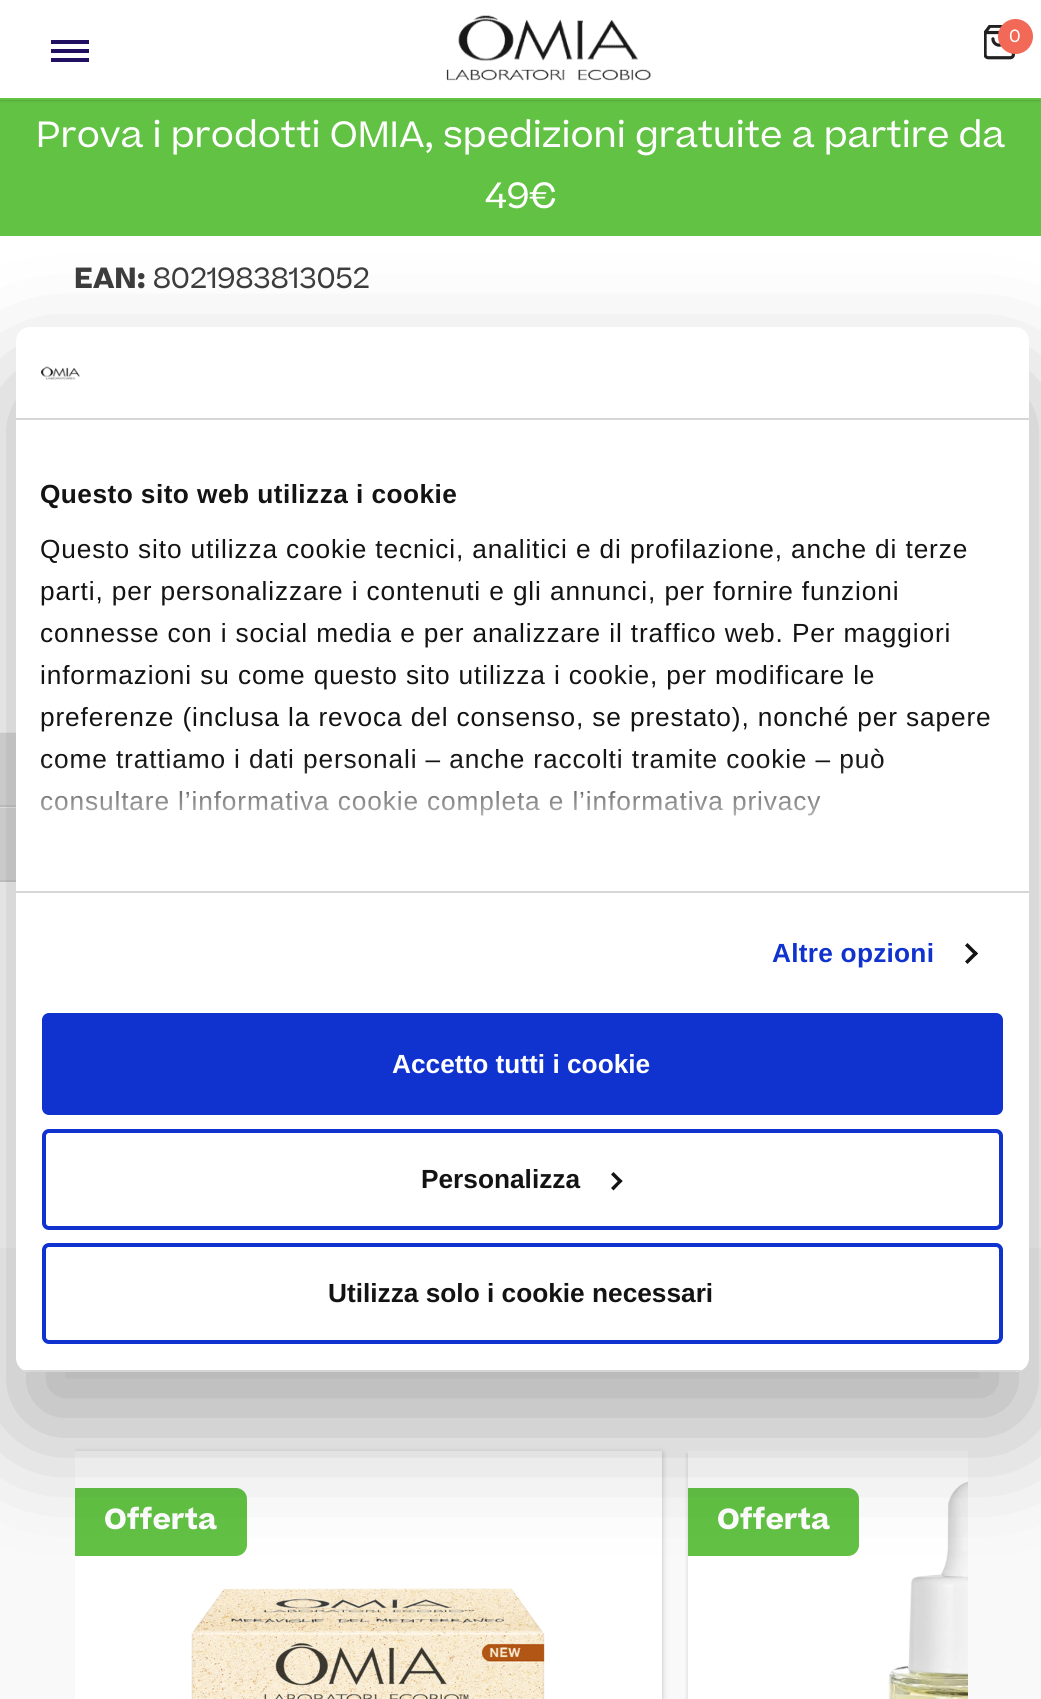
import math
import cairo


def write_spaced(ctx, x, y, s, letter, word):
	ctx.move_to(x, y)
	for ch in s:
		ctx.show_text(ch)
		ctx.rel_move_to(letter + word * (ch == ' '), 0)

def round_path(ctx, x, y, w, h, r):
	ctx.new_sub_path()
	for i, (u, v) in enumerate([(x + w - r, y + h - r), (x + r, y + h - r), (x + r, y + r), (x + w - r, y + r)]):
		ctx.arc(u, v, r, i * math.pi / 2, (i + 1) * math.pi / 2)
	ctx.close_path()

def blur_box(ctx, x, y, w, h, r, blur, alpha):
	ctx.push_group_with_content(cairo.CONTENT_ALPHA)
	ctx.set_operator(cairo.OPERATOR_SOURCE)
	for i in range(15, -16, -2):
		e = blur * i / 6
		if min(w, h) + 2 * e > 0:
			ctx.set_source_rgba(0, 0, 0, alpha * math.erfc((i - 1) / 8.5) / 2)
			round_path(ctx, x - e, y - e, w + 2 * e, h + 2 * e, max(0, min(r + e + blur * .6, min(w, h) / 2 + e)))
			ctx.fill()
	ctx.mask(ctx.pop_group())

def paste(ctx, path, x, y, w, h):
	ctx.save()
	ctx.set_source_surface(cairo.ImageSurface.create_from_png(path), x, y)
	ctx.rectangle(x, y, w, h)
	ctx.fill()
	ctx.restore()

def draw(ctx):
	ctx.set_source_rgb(1, 1, 1)
	ctx.paint()
	ctx.set_source_rgb(0.384, 0.761, 0.267)
	ctx.rectangle(0, 100, 1041, 136)
	ctx.fill()
	ctx.set_source_rgb(0, 0, 0)
	blur_box(ctx, 0, 0, 1041, 100, 0, 2.5, 0.1)
	blur_box(ctx, 0, 0, 1041, 100, 0, 1, 0.2)
	ctx.set_source_rgb(1, 1, 1)
	ctx.rectangle(0, 0, 1041, 98)
	ctx.fill()
	ctx.set_source_rgb(0.384, 0.761, 0.267)
	ctx.rectangle(0, 98, 1041, 2)
	ctx.fill()
	paste(ctx, 'media/1.png', 446, 15, 205, 66)
	paste(ctx, 'media/2.png', 984, 25, 31, 35)
	ctx.set_source_rgb(0.949, 0.412, 0.341)
	ctx.arc(1015.5, 36.5, 17.5, 0, 2 * math.pi)
	ctx.fill()
	ctx.select_font_face('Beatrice')
	ctx.set_font_size(17)
	ctx.set_source_rgb(1, 1, 1)
	ctx.move_to(1009, 42)
	ctx.show_text('0')
	ctx.set_source_rgb(0.129, 0.063, 0.38)
	ctx.rectangle(51, 40, 38, 4)
	ctx.rectangle(51, 49, 38, 4)
	ctx.rectangle(51, 58, 38, 4)
	ctx.fill()
	ctx.set_font_size(35)
	ctx.set_source_rgb(1, 1, 1)
	ctx.move_to(36, 147)
	ctx.show_text('Prova i prodotti OMIA, spedizioni gratuite a partire da')
	ctx.move_to(485, 208)
	ctx.show_text('49€')
	ctx.select_font_face('Beatrice', cairo.FONT_SLANT_NORMAL, cairo.FONT_WEIGHT_BOLD)
	ctx.set_font_size(28)
	ctx.set_source_rgb(0.239, 0.239, 0.239)
	ctx.move_to(74, 288)
	ctx.show_text('EAN:')
	ctx.select_font_face('Beatrice')
	ctx.move_to(153, 288)
	ctx.show_text('8021983813052')
	ctx.set_source_rgb(0.976, 0.976, 0.976)
	ctx.rectangle(0, 1248, 1041, 451)
	ctx.fill()
	ctx.save()
	ctx.rectangle(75, 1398, 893, 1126)
	ctx.clip()
	ctx.set_source_rgb(0, 0, 0)
	blur_box(ctx, 75, 1453, 587, 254, 0, 2.5, 0.15)
	blur_box(ctx, 75, 1454, 587, 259, 0, 4.5, 0.1)
	ctx.restore()
	ctx.set_source_rgb(1, 1, 1)
	ctx.rectangle(75, 1451, 587, 248)
	ctx.fill()
	ctx.set_source_rgb(0.384, 0.761, 0.267)
	ctx.new_path()
	ctx.move_to(75, 1488)
	ctx.line_to(236, 1488)
	ctx.curve_to(242, 1488, 247, 1493, 247, 1499)
	ctx.line_to(247, 1545)
	ctx.curve_to(247, 1551, 242, 1556, 236, 1556)
	ctx.line_to(75, 1556)
	ctx.close_path()
	ctx.fill()
	ctx.select_font_face('Beatrice', cairo.FONT_SLANT_NORMAL, cairo.FONT_WEIGHT_BOLD)
	ctx.set_source_rgb(1, 1, 1)
	ctx.move_to(104, 1529)
	ctx.show_text('Offerta')
	paste(ctx, 'media/3.png', 191, 1588, 354, 111)
	ctx.save()
	ctx.rectangle(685, 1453, 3, 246)
	ctx.clip()
	ctx.set_source_rgb(0, 0, 0)
	blur_box(ctx, 688, 1453, 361, 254, 0, 2.5, 0.15)
	ctx.restore()
	ctx.rectangle(688, 1451, 280, 248)
	ctx.fill()
	ctx.set_source_rgb(0.384, 0.761, 0.267)
	ctx.new_path()
	ctx.move_to(688, 1488)
	ctx.line_to(848, 1488)
	ctx.curve_to(854, 1488, 859, 1493, 859, 1499)
	ctx.line_to(859, 1545)
	ctx.curve_to(859, 1551, 854, 1556, 848, 1556)
	ctx.line_to(688, 1556)
	ctx.close_path()
	ctx.fill()
	ctx.set_source_rgb(1, 1, 1)
	ctx.move_to(717, 1529)
	ctx.show_text('Offerta')
	paste(ctx, 'media/4.png', 888, 1481, 80, 218)
	ctx.set_source_rgb(0.886, 0.886, 0.886)
	ctx.rectangle(0, 733, 16, 72)
	ctx.fill()
	ctx.set_source_rgb(0.961, 0.961, 0.961)
	ctx.new_path()
	ctx.move_to(0, 733)
	ctx.line_to(63, 733)
	ctx.curve_to(67, 733, 70, 736, 70, 738)
	ctx.curve_to(70, 735, 67, 732, 63, 732)
	ctx.line_to(0, 732)
	ctx.close_path()
	ctx.fill()
	ctx.set_source_rgb(0.824, 0.824, 0.824)
	ctx.rectangle(0, 805, 16, 2)
	ctx.fill()
	ctx.set_source_rgb(0.886, 0.886, 0.886)
	ctx.rectangle(0, 808, 16, 72)
	ctx.fill()
	ctx.set_source_rgb(0.961, 0.961, 0.961)
	ctx.rectangle(0, 807, 16, 1)
	ctx.fill()
	ctx.set_source_rgb(0.824, 0.824, 0.824)
	ctx.new_path()
	ctx.move_to(0, 880)
	ctx.line_to(0, 882)
	ctx.line_to(63, 882)
	ctx.curve_to(67, 882, 70, 879, 70, 875)
	ctx.curve_to(70, 878, 67, 880, 63, 880)
	ctx.close_path()
	ctx.fill()
	ctx.set_source_rgb(0, 0, 0)
	blur_box(ctx, 16, 383, 1013, 1045, 14, 59.5, 0.3)
	ctx.set_source_rgb(1, 1, 1)
	round_path(ctx, 16, 327, 1013, 1045, 14)
	ctx.fill()
	ctx.set_source_rgb(0.839, 0.839, 0.839)
	ctx.rectangle(16, 418, 1013, 2)
	ctx.fill()
	paste(ctx, 'media/5.png', 41, 366, 39, 14)
	ctx.rectangle(16, 891, 1013, 2)
	ctx.fill()
	ctx.select_font_face('Liberation Sans', cairo.FONT_SLANT_NORMAL, cairo.FONT_WEIGHT_BOLD)
	ctx.set_font_size(26.25)
	ctx.set_source_rgb(0.078, 0.078, 0.078)
	write_spaced(ctx, 40, 503, 'Questo sito web utilizza i cookie', 0.45, 0)
	ctx.select_font_face('Liberation Sans')
	for x, y, s in [
		(40, 558, 'Questo sito utilizza cookie tecnici, analitici e di profilazione, anche di terze'),
		(40, 600, 'parti, per personalizzare i contenuti e gli annunci, per fornire funzioni'),
		(40, 642, 'connesse con i social media e per analizzare il traffico web. Per maggiori'),
		(40, 684, 'informazioni su come questo sito utilizza i cookie, per modificare le'),
		(40, 726, 'preferenze (inclusa la revoca del consenso, se prestato), nonché per sapere'),
		(40, 768, 'come trattiamo i dati personali – anche raccolti tramite cookie – può'),
		(40, 810, 'consultare l’informativa cookie completa e l’informativa privacy'),
	]:
		write_spaced(ctx, x, y, s, 0.88, 0)
	gradient = cairo.LinearGradient(510, 891, 510, 760)
	gradient.add_color_stop_rgba(0, 1, 1, 1, 1)
	gradient.add_color_stop_rgba(0.5, 1, 1, 1, 0.8)
	gradient.add_color_stop_rgba(1, 1, 1, 1, 0)
	ctx.set_source(gradient)
	ctx.rectangle(41, 762, 843, 54)
	ctx.fill()
	ctx.select_font_face('Liberation Sans', cairo.FONT_SLANT_NORMAL, cairo.FONT_WEIGHT_BOLD)
	ctx.set_source_rgb(0.063, 0.196, 0.812)
	write_spaced(ctx, 772, 962, 'Altre opzioni', 0.25, 0)
	ctx.set_source_rgb(0.078, 0.078, 0.078)
	ctx.new_path()
	ctx.move_to(967.5, 943)
	ctx.line_to(978, 953.5)
	ctx.line_to(975.5, 956)
	ctx.line_to(965, 945.5)
	ctx.close_path()
	ctx.fill()
	ctx.new_path()
	ctx.move_to(975.5, 951)
	ctx.line_to(978, 953.5)
	ctx.line_to(967.5, 964)
	ctx.line_to(965, 961.5)
	ctx.close_path()
	ctx.fill()
	ctx.save()
	round_path(ctx, 16, 327, 1013, 1045, 14)
	ctx.clip()
	ctx.set_source_rgb(0.839, 0.839, 0.839)
	ctx.rectangle(16, 1370, 1013, 2)
	ctx.fill()
	ctx.restore()
	ctx.set_source_rgb(0.063, 0.196, 0.812)
	round_path(ctx, 44, 1015, 957, 98, 5)
	ctx.fill_preserve()
	ctx.set_line_width(4)
	ctx.stroke()
	ctx.set_source_rgb(1, 1, 1)
	ctx.move_to(392, 1073)
	ctx.show_text('Accetto tutti i cookie')
	round_path(ctx, 44, 1131, 957, 97, 5)
	ctx.set_source_rgb(0.063, 0.196, 0.812)
	ctx.stroke()
	ctx.set_source_rgb(0.078, 0.078, 0.078)
	ctx.move_to(421, 1188)
	ctx.show_text('Personalizza')
	ctx.new_path()
	ctx.move_to(613.5, 1172)
	ctx.line_to(622.5, 1181)
	ctx.line_to(620, 1183.5)
	ctx.line_to(611, 1174.5)
	ctx.close_path()
	ctx.fill()
	ctx.new_path()
	ctx.move_to(620, 1179)
	ctx.line_to(622.5, 1181)
	ctx.line_to(613.5, 1190.5)
	ctx.line_to(611, 1188)
	ctx.close_path()
	ctx.fill()
	round_path(ctx, 44, 1245, 957, 97, 5)
	ctx.set_source_rgb(0.063, 0.196, 0.812)
	ctx.stroke()
	ctx.set_source_rgb(0.078, 0.078, 0.078)
	ctx.move_to(328, 1302)
	ctx.show_text('Utilizza solo i cookie necessari')


surface = cairo.ImageSurface(cairo.FORMAT_RGB24, 1041, 1699)
ctx = cairo.Context(surface)
options = cairo.FontOptions()
options.set_hint_metrics(cairo.HINT_METRICS_OFF)
options.set_hint_style(cairo.HINT_STYLE_NONE)
ctx.set_font_options(options)
ctx.set_miter_limit(4)
draw(ctx)
surface.write_to_png('image.png')
